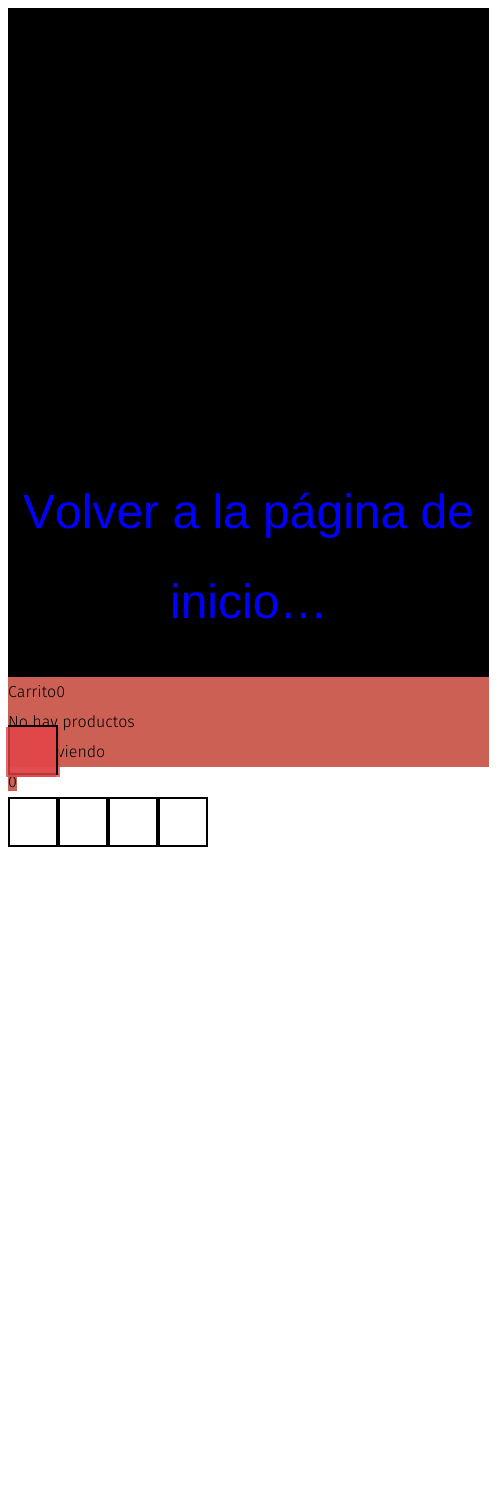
import math
import cairo


def draw(ctx):
	ctx.set_source_rgb(1, 1, 1)
	ctx.paint()
	ctx.set_source_rgb(0, 0, 0)
	ctx.rectangle(8, 8, 481, 669)
	ctx.fill()
	ctx.select_font_face('Liberation Sans')
	ctx.set_font_size(48)
	ctx.set_source_rgb(0, 0, 1)
	ctx.move_to(23, 528)
	ctx.show_text('Volver a la página de')
	ctx.move_to(170, 618)
	ctx.show_text('inicio…')
	ctx.set_source_rgb(0.8, 0.376, 0.333)
	ctx.rectangle(8, 677, 481, 90)
	ctx.fill()
	ctx.select_font_face('Fira Sans Light')
	ctx.set_font_size(16)
	ctx.set_source_rgb(0, 0, 0)
	for x, y, s in [
		(8, 697, 'Carrito0'),
		(8, 727, 'No hay productos'),
		(57, 757, 'viendo'),
	]:
		ctx.move_to(x, y)
		ctx.show_text(s)
	ctx.set_source_rgb(0.8, 0.376, 0.333)
	ctx.rectangle(8, 772, 9, 19)
	ctx.fill()
	ctx.set_source_rgb(0, 0, 0)
	ctx.move_to(8, 787)
	ctx.show_text('0')
	ctx.set_source_rgba(0.882, 0.278, 0.286, 0.8)
	ctx.rectangle(10, 727, 50, 50)
	ctx.fill()
	ctx.rectangle(9, 726, 48, 48)
	ctx.set_source_rgb(0, 0, 0)
	ctx.stroke()
	ctx.set_source_rgba(0.882, 0.278, 0.286, 0.8)
	ctx.rectangle(6, 727, 50, 50)
	ctx.fill()
	ctx.rectangle(9, 798, 48, 48)
	ctx.set_source_rgb(0, 0, 0)
	ctx.stroke()
	ctx.rectangle(59, 798, 48, 48)
	ctx.stroke()
	ctx.rectangle(109, 798, 48, 48)
	ctx.stroke()
	ctx.rectangle(159, 798, 48, 48)
	ctx.stroke()


surface = cairo.ImageSurface(cairo.FORMAT_RGB24, 497, 1499)
ctx = cairo.Context(surface)
options = cairo.FontOptions()
options.set_hint_metrics(cairo.HINT_METRICS_OFF)
options.set_hint_style(cairo.HINT_STYLE_NONE)
ctx.set_font_options(options)
ctx.set_miter_limit(4)
draw(ctx)
surface.write_to_png('image.png')
